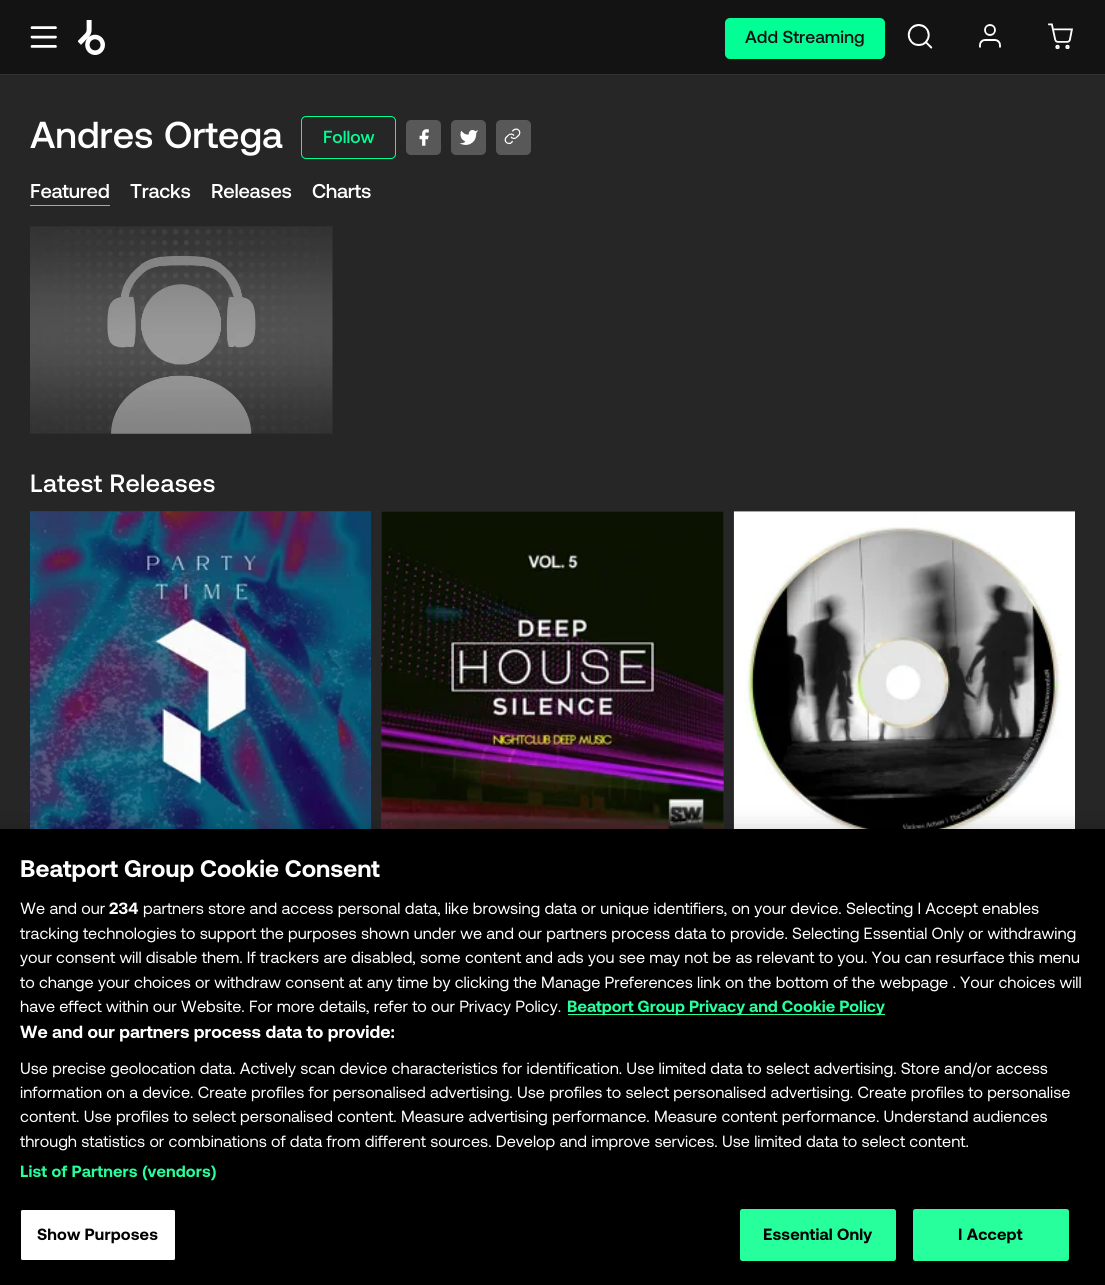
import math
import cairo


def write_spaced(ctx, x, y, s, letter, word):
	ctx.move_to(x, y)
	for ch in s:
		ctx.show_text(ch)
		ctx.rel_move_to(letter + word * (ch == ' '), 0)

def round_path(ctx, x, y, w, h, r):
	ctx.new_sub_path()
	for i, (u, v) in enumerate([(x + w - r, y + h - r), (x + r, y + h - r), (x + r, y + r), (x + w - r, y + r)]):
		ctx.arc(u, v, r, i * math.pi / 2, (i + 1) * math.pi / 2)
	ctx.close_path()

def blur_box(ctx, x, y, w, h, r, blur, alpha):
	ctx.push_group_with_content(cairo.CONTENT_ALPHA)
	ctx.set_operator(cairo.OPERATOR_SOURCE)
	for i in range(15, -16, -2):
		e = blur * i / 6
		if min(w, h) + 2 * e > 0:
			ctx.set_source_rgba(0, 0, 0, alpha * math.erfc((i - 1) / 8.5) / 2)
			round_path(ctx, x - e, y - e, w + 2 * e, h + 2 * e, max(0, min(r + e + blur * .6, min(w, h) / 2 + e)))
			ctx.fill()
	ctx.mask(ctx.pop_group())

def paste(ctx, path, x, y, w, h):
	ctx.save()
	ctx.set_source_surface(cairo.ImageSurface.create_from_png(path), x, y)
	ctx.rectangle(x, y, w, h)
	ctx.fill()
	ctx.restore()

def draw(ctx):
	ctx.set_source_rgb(0.149, 0.149, 0.149)
	ctx.paint()
	ctx.set_source_rgb(0.078, 0.078, 0.078)
	ctx.rectangle(0, 0, 1105, 74)
	ctx.fill()
	ctx.set_source_rgb(0.2, 0.2, 0.2)
	ctx.rectangle(0, 74, 1105, 1)
	ctx.fill()
	paste(ctx, 'media/1.png', 30, 26, 27, 22)
	paste(ctx, 'media/2.png', 78, 20, 27, 35)
	ctx.set_source_rgb(0.004, 1, 0.584)
	round_path(ctx, 725, 18, 160, 41, 5)
	ctx.fill()
	ctx.select_font_face('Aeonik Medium')
	ctx.set_font_size(17.5)
	ctx.set_source_rgb(0.078, 0.078, 0.078)
	ctx.move_to(745, 43)
	ctx.show_text('Add Streaming')
	paste(ctx, 'media/3.png', 907, 24, 26, 25)
	paste(ctx, 'media/4.png', 979, 24, 22, 24)
	paste(ctx, 'media/5.png', 1048, 23, 25, 26)
	ctx.set_font_size(37.5)
	ctx.set_source_rgb(1, 1, 1)
	write_spaced(ctx, 30, 148, 'Andres Ortega', 0, 1)
	round_path(ctx, 301.5, 116.5, 94, 42, 4.5)
	ctx.set_source_rgb(0.004, 1, 0.584)
	ctx.set_line_width(1)
	ctx.stroke()
	ctx.set_font_size(17.5)
	ctx.move_to(323, 143)
	ctx.show_text('Follow')
	ctx.set_source_rgb(0.345, 0.345, 0.345)
	round_path(ctx, 406, 120, 35, 35, 5)
	ctx.fill()
	paste(ctx, 'media/6.png', 419, 129, 10, 17)
	round_path(ctx, 451, 120, 35, 35, 5)
	ctx.fill()
	paste(ctx, 'media/7.png', 459, 130, 19, 15)
	round_path(ctx, 496, 120, 35, 35, 5)
	ctx.fill()
	paste(ctx, 'media/8.png', 504, 128, 17, 16)
	ctx.set_source_rgb(0.004, 1, 0.584)
	ctx.rectangle(30, 205, 80, 1)
	ctx.fill()
	ctx.set_font_size(20)
	ctx.set_source_rgb(1, 1, 1)
	for x, y, s in [
		(30, 198, 'Featured'),
		(130, 198, 'Tracks'),
		(211, 198, 'Releases'),
		(312, 198, 'Charts'),
	]:
		write_spaced(ctx, x, y, s, -0.25, 0)
	paste(ctx, 'media/9.png', 30, 226, 303, 208)
	ctx.set_font_size(25)
	write_spaced(ctx, 30, 492, 'Latest Releases', 0.4, 0)
	ctx.set_source_rgb(0.204, 0.204, 0.204)
	ctx.rectangle(30, 511, 341, 1)
	ctx.fill()
	paste(ctx, 'media/10.png', 30, 511, 342, 318)
	ctx.rectangle(381, 511, 343, 318)
	ctx.fill()
	paste(ctx, 'media/11.png', 381, 511, 343, 318)
	ctx.rectangle(734, 511, 341, 1)
	ctx.fill()
	paste(ctx, 'media/12.png', 733, 511, 342, 318)
	ctx.set_source_rgb(0, 0, 0)
	blur_box(ctx, 0, 829, 1105, 456, 0, 11, 0.2)
	ctx.set_source_rgb(0, 0, 0)
	ctx.rectangle(0, 829, 1105, 456)
	ctx.fill()
	ctx.select_font_face('Aeonik', cairo.FONT_SLANT_NORMAL, cairo.FONT_WEIGHT_BOLD)
	ctx.set_font_size(24)
	ctx.set_source_rgb(1, 1, 1)
	ctx.move_to(20, 877)
	ctx.show_text('Beatport Group Cookie Consent')
	ctx.select_font_face('Aeonik')
	ctx.set_font_size(16.25)
	ctx.move_to(20, 914)
	ctx.show_text('We and our')
	ctx.select_font_face('Aeonik', cairo.FONT_SLANT_NORMAL, cairo.FONT_WEIGHT_BOLD)
	ctx.move_to(109, 914)
	ctx.show_text('234')
	ctx.select_font_face('Aeonik')
	for x, y, s in [
		(143, 914, 'partners store and access personal data, like browsing data or unique identifiers, on your device. Selecting I Accept enables'),
		(20, 939, 'tracking technologies to support the purposes shown under we and our partners process data to provide. Selecting Essential Only or withdrawing'),
		(20, 963, 'your consent will disable them. If trackers are disabled, some content and ads you see may not be as relevant to you. You can resurface this menu'),
		(20, 988, 'to change your choices or withdraw consent at any time by clicking the Manage Preferences link on the bottom of the webpage . Your choices will'),
		(20, 1012, 'have effect within our Website. For more details, refer to our Privacy Policy.'),
	]:
		ctx.move_to(x, y)
		ctx.show_text(s)
	ctx.set_source_rgb(0.153, 1, 0.612)
	ctx.rectangle(568, 1014, 317, 1)
	ctx.fill()
	ctx.select_font_face('Aeonik', cairo.FONT_SLANT_NORMAL, cairo.FONT_WEIGHT_BOLD)
	ctx.move_to(567, 1012)
	ctx.show_text('Beatport Group Privacy and Cookie Policy')
	ctx.set_font_size(17.6)
	ctx.set_source_rgb(1, 1, 1)
	ctx.move_to(20, 1038)
	ctx.show_text('We and our partners process data to provide:')
	ctx.select_font_face('Aeonik')
	ctx.set_font_size(16.25)
	for x, y, s in [
		(20, 1074, 'Use precise geolocation data. Actively scan device characteristics for identification. Use limited data to select advertising. Store and/or access'),
		(20, 1098, 'information on a device. Create profiles for personalised advertising. Use profiles to select personalised advertising. Create profiles to personalise'),
		(20, 1122, 'content. Use profiles to select personalised content. Measure advertising performance. Measure content performance. Understand audiences'),
		(20, 1147, 'through statistics or combinations of data from different sources. Develop and improve services. Use limited data to select content.'),
	]:
		ctx.move_to(x, y)
		ctx.show_text(s)
	ctx.select_font_face('Aeonik', cairo.FONT_SLANT_NORMAL, cairo.FONT_WEIGHT_BOLD)
	ctx.set_source_rgb(0.153, 1, 0.612)
	write_spaced(ctx, 20, 1177, 'List of Partners (vendors)', 0.15, 0)
	ctx.set_source_rgb(1, 1, 1)
	round_path(ctx, 20.5, 1209.5, 155, 51, 2)
	ctx.fill_preserve()
	ctx.set_source_rgb(0, 0, 0)
	ctx.stroke()
	write_spaced(ctx, 37, 1240, 'Show Purposes', 0.15, 0)
	ctx.set_source_rgb(0.153, 1, 0.612)
	round_path(ctx, 740.5, 1209.5, 155, 51, 2)
	ctx.fill_preserve()
	ctx.stroke()
	ctx.set_source_rgb(0, 0, 0)
	write_spaced(ctx, 763, 1240, 'Essential Only', 0.15, 0)
	ctx.set_source_rgb(0.153, 1, 0.612)
	round_path(ctx, 913.5, 1209.5, 155, 51, 2)
	ctx.fill_preserve()
	ctx.stroke()
	ctx.set_source_rgb(0, 0, 0)
	write_spaced(ctx, 958, 1240, 'I Accept', 0.15, 0)


surface = cairo.ImageSurface(cairo.FORMAT_RGB24, 1105, 1285)
ctx = cairo.Context(surface)
options = cairo.FontOptions()
options.set_hint_metrics(cairo.HINT_METRICS_OFF)
options.set_hint_style(cairo.HINT_STYLE_NONE)
ctx.set_font_options(options)
ctx.set_miter_limit(4)
draw(ctx)
surface.write_to_png('image.png')
